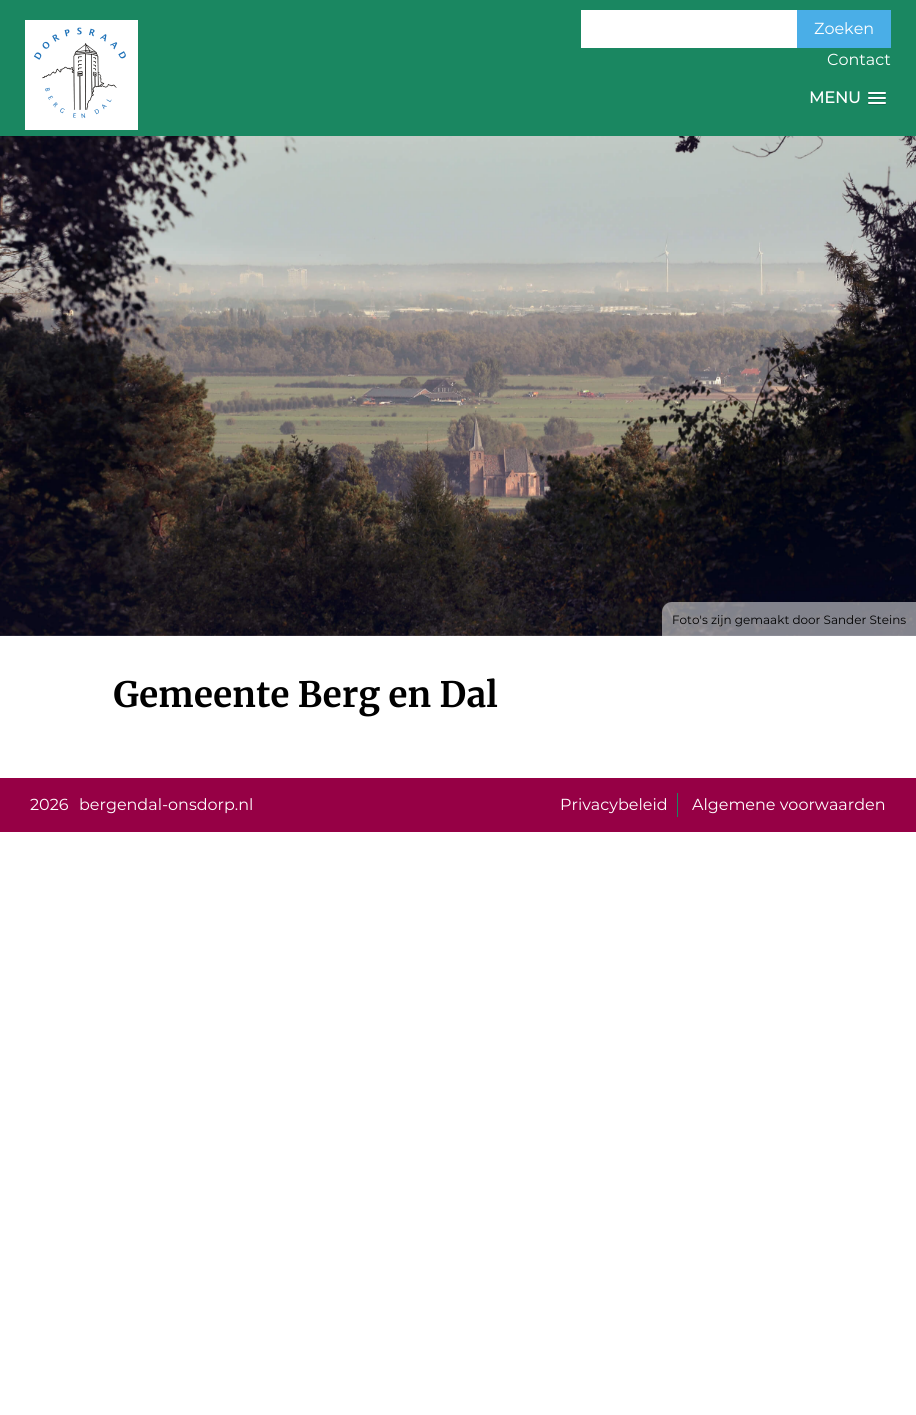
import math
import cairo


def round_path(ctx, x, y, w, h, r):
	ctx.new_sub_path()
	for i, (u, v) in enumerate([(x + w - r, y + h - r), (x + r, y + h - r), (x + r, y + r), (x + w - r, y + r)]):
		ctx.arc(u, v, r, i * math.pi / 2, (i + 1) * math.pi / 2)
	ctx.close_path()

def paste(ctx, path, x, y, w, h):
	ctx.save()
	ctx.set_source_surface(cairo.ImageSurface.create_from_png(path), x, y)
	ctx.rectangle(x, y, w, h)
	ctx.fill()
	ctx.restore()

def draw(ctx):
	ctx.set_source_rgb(1, 1, 1)
	ctx.paint()
	ctx.set_source_rgb(0.102, 0.529, 0.38)
	ctx.rectangle(0, 0, 916, 136)
	ctx.fill()
	ctx.set_source_rgb(1, 1, 1)
	ctx.rectangle(25, 20, 113, 110)
	ctx.fill()
	paste(ctx, 'media/1.png', 33, 27, 93, 92)
	ctx.rectangle(581, 10, 216, 38)
	ctx.fill()
	ctx.set_source_rgb(0.29, 0.682, 0.906)
	ctx.rectangle(797, 10, 94, 38)
	ctx.fill()
	ctx.select_font_face('Montserrat')
	ctx.set_font_size(16)
	ctx.set_source_rgb(1, 1, 1)
	ctx.move_to(814, 34)
	ctx.show_text('Zoeken')
	ctx.move_to(827, 65)
	ctx.show_text('Contact')
	ctx.select_font_face('Montserrat', cairo.FONT_SLANT_NORMAL, cairo.FONT_WEIGHT_BOLD)
	ctx.move_to(809, 103)
	ctx.show_text('MENU')
	ctx.set_source_rgb(0.078, 0.396, 0.286)
	ctx.new_path()
	ctx.move_to(868, 93.5)
	ctx.curve_to(867, 95.5, 871.5, 95, 871.5, 95)
	ctx.line_to(882.5, 95)
	ctx.curve_to(882.5, 95, 887, 95.5, 886, 93.5)
	ctx.curve_to(885, 94.5, 878.5, 94, 877, 94)
	ctx.curve_to(875.5, 94, 869, 94.5, 868, 93.5)
	ctx.close_path()
	ctx.fill()
	ctx.set_source_rgb(1, 1, 1)
	round_path(ctx, 868, 92, 18, 2, 1)
	ctx.fill()
	ctx.set_source_rgb(0.078, 0.396, 0.286)
	ctx.new_path()
	ctx.move_to(868, 98.5)
	ctx.curve_to(867, 100.5, 871.5, 100, 871.5, 100)
	ctx.line_to(882.5, 100)
	ctx.curve_to(882.5, 100, 887, 100.5, 886, 98.5)
	ctx.curve_to(885, 99.5, 878.5, 99, 877, 99)
	ctx.curve_to(875.5, 99, 869, 99.5, 868, 98.5)
	ctx.close_path()
	ctx.fill()
	ctx.set_source_rgb(1, 1, 1)
	round_path(ctx, 868, 97, 18, 2, 1)
	ctx.fill()
	ctx.set_source_rgb(0.078, 0.396, 0.286)
	ctx.new_path()
	ctx.move_to(868, 103.5)
	ctx.curve_to(867, 105.5, 871.5, 105, 871.5, 105)
	ctx.line_to(882.5, 105)
	ctx.curve_to(882.5, 105, 887, 105.5, 886, 103.5)
	ctx.curve_to(885, 104.5, 878.5, 104, 877, 104)
	ctx.curve_to(875.5, 104, 869, 104.5, 868, 103.5)
	ctx.close_path()
	ctx.fill()
	ctx.set_source_rgb(1, 1, 1)
	round_path(ctx, 868, 102, 18, 2, 1)
	ctx.fill()
	paste(ctx, 'media/2.png', 0, 136, 916, 500)
	ctx.set_source_rgba(1, 1, 1, 0.5)
	ctx.new_path()
	ctx.move_to(672, 602)
	ctx.line_to(916, 602)
	ctx.line_to(916, 636)
	ctx.line_to(662, 636)
	ctx.line_to(662, 612)
	ctx.curve_to(662, 606.5, 666.5, 602, 672, 602)
	ctx.close_path()
	ctx.fill()
	ctx.select_font_face('Montserrat')
	ctx.set_font_size(12)
	ctx.set_source_rgb(0, 0, 0)
	ctx.move_to(672, 624)
	ctx.show_text('Foto\'s zijn gemaakt door Sander Steins')
	ctx.select_font_face('Merriweather', cairo.FONT_SLANT_NORMAL, cairo.FONT_WEIGHT_BOLD)
	ctx.set_font_size(35)
	ctx.move_to(113, 707)
	ctx.show_text('Gemeente Berg en Dal')
	ctx.set_source_rgb(0.588, 0, 0.271)
	ctx.rectangle(0, 778, 916, 54)
	ctx.fill()
	ctx.select_font_face('Montserrat')
	ctx.set_font_size(16)
	ctx.set_source_rgb(1, 1, 1)
	ctx.move_to(30, 810)
	ctx.show_text('2026')
	ctx.move_to(79, 810)
	ctx.show_text('bergendal-onsdorp.nl')
	ctx.set_source_rgb(0.102, 0.529, 0.38)
	ctx.rectangle(677, 793, 1, 24)
	ctx.fill()
	ctx.set_source_rgb(1, 1, 1)
	ctx.move_to(560, 810)
	ctx.show_text('Privacybeleid')
	ctx.move_to(692, 810)
	ctx.show_text('Algemene voorwaarden')


surface = cairo.ImageSurface(cairo.FORMAT_RGB24, 916, 1415)
ctx = cairo.Context(surface)
options = cairo.FontOptions()
options.set_hint_metrics(cairo.HINT_METRICS_OFF)
options.set_hint_style(cairo.HINT_STYLE_NONE)
ctx.set_font_options(options)
ctx.set_miter_limit(4)
draw(ctx)
surface.write_to_png('image.png')
